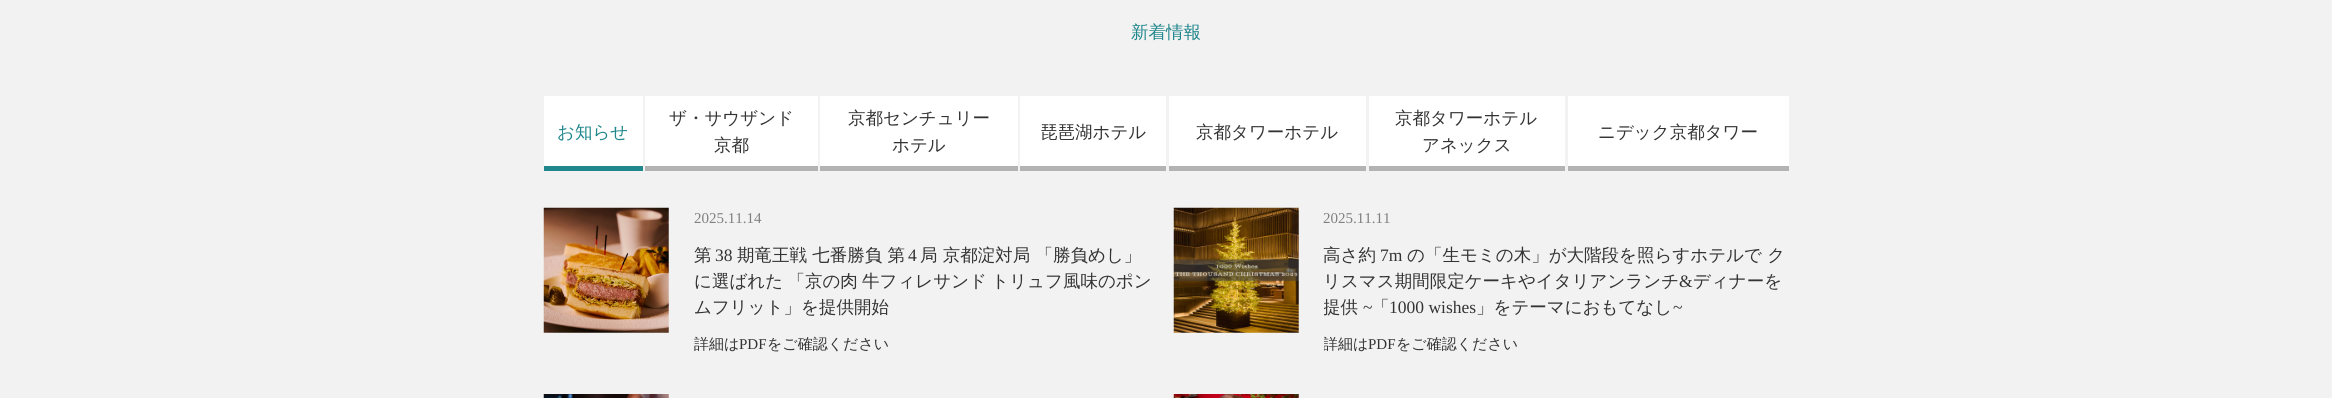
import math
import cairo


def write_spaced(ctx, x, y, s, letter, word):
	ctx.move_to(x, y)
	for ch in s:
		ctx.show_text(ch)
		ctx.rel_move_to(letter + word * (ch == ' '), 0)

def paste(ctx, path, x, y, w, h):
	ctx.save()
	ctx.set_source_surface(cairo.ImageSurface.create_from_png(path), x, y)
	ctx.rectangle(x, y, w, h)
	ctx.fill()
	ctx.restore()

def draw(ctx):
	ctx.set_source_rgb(0.949, 0.949, 0.949)
	ctx.paint()
	ctx.select_font_face('WenQuanYi Zen Hei Medium')
	ctx.set_font_size(17.5)
	ctx.set_source_rgb(0.125, 0.529, 0.549)
	ctx.move_to(1131, 38)
	ctx.show_text('新着情報')
	ctx.set_source_rgb(1, 1, 1)
	ctx.rectangle(544, 96, 99, 70)
	ctx.fill()
	ctx.set_source_rgb(0.125, 0.529, 0.549)
	ctx.rectangle(544, 166, 99, 5)
	ctx.fill()
	ctx.move_to(557, 138)
	ctx.show_text('お知らせ')
	ctx.set_source_rgb(1, 1, 1)
	ctx.rectangle(645, 96, 173, 70)
	ctx.fill()
	ctx.set_source_rgb(0.702, 0.702, 0.702)
	ctx.rectangle(645, 166, 173, 5)
	ctx.fill()
	ctx.set_source_rgb(0.2, 0.2, 0.2)
	ctx.move_to(669, 124)
	ctx.show_text('ザ・サウザンド')
	ctx.move_to(714, 151)
	ctx.show_text('京都')
	ctx.set_source_rgb(1, 1, 1)
	ctx.rectangle(820, 96, 198, 70)
	ctx.fill()
	ctx.set_source_rgb(0.702, 0.702, 0.702)
	ctx.rectangle(820, 166, 198, 5)
	ctx.fill()
	ctx.set_source_rgb(0.2, 0.2, 0.2)
	ctx.move_to(848, 124)
	ctx.show_text('京都センチュリー')
	ctx.move_to(892, 151)
	ctx.show_text('ホテル')
	ctx.set_source_rgb(1, 1, 1)
	ctx.rectangle(1020, 96, 146, 70)
	ctx.fill()
	ctx.set_source_rgb(0.702, 0.702, 0.702)
	ctx.rectangle(1020, 166, 146, 5)
	ctx.fill()
	ctx.set_source_rgb(0.2, 0.2, 0.2)
	ctx.move_to(1040, 138)
	ctx.show_text('琵琶湖ホテル')
	ctx.set_source_rgb(1, 1, 1)
	ctx.rectangle(1169, 96, 197, 70)
	ctx.fill()
	ctx.set_source_rgb(0.702, 0.702, 0.702)
	ctx.rectangle(1169, 166, 197, 5)
	ctx.fill()
	ctx.set_source_rgb(0.2, 0.2, 0.2)
	ctx.move_to(1196, 138)
	ctx.show_text('京都タワーホテル')
	ctx.set_source_rgb(1, 1, 1)
	ctx.rectangle(1369, 96, 196, 70)
	ctx.fill()
	ctx.set_source_rgb(0.702, 0.702, 0.702)
	ctx.rectangle(1369, 166, 196, 5)
	ctx.fill()
	ctx.set_source_rgb(0.2, 0.2, 0.2)
	ctx.move_to(1395, 124)
	ctx.show_text('京都タワーホテル')
	ctx.move_to(1422, 151)
	ctx.show_text('アネックス')
	ctx.set_source_rgb(1, 1, 1)
	ctx.rectangle(1568, 96, 221, 70)
	ctx.fill()
	ctx.set_source_rgb(0.702, 0.702, 0.702)
	ctx.rectangle(1568, 166, 221, 5)
	ctx.fill()
	ctx.set_source_rgb(0.2, 0.2, 0.2)
	ctx.move_to(1598, 138)
	ctx.show_text('ニデック京都タワー')
	paste(ctx, 'media/1.png', 543, 207, 126, 126)
	ctx.select_font_face('Liberation Serif')
	ctx.set_font_size(15)
	ctx.set_source_rgb(0.502, 0.502, 0.502)
	ctx.move_to(694, 223)
	ctx.show_text('2025.11.14')
	ctx.select_font_face('WenQuanYi Zen Hei Medium')
	ctx.set_font_size(17.5)
	ctx.set_source_rgb(0.2, 0.2, 0.2)
	ctx.move_to(694, 261)
	ctx.show_text('第')
	ctx.select_font_face('Liberation Serif')
	ctx.move_to(715, 261)
	ctx.show_text('38')
	ctx.select_font_face('WenQuanYi Zen Hei Medium')
	ctx.move_to(737, 261)
	ctx.show_text('期竜王戦 七番勝負 第')
	ctx.select_font_face('Liberation Serif')
	ctx.move_to(908, 261)
	ctx.show_text('4')
	ctx.select_font_face('WenQuanYi Zen Hei Medium')
	ctx.move_to(920, 261)
	ctx.show_text('局 京都淀対局 「勝負めし」')
	write_spaced(ctx, 694, 287, 'に選ばれた 「京の肉 牛フィレサンド トリュフ風味のポン', 0, -1)
	ctx.move_to(694, 313)
	ctx.show_text('ムフリット」を提供開始')
	ctx.set_font_size(15)
	ctx.move_to(694, 349)
	ctx.show_text('詳細は')
	ctx.select_font_face('Liberation Serif')
	ctx.move_to(739, 349)
	ctx.show_text('PDF')
	ctx.select_font_face('WenQuanYi Zen Hei Medium')
	ctx.move_to(767, 349)
	ctx.show_text('をご確認ください')
	paste(ctx, 'media/2.png', 1173, 207, 126, 126)
	ctx.select_font_face('Liberation Serif')
	ctx.set_source_rgb(0.502, 0.502, 0.502)
	ctx.move_to(1323, 223)
	ctx.show_text('2025.11.11')
	ctx.select_font_face('WenQuanYi Zen Hei Medium')
	ctx.set_font_size(17.5)
	ctx.set_source_rgb(0.2, 0.2, 0.2)
	ctx.move_to(1323, 261)
	ctx.show_text('高さ約')
	ctx.select_font_face('Liberation Serif')
	ctx.move_to(1380, 261)
	ctx.show_text('7m')
	ctx.select_font_face('WenQuanYi Zen Hei Medium')
	ctx.move_to(1407, 261)
	ctx.show_text('の「生モミの木」が大階段を照らすホテルで ク')
	ctx.move_to(1323, 287)
	ctx.show_text('リスマス期間限定ケーキやイタリアンランチ')
	ctx.select_font_face('Liberation Serif')
	ctx.move_to(1679, 287)
	ctx.show_text('&')
	ctx.select_font_face('WenQuanYi Zen Hei Medium')
	ctx.move_to(1693, 287)
	ctx.show_text('ディナーを')
	ctx.save()
	ctx.rectangle(1324, 208, 462, 161)
	ctx.clip()
	ctx.move_to(1323, 313)
	ctx.show_text('提供')
	ctx.restore()
	ctx.select_font_face('Liberation Serif')
	ctx.move_to(1363, 313)
	ctx.show_text('~')
	ctx.select_font_face('WenQuanYi Zen Hei Medium')
	ctx.move_to(1372, 313)
	ctx.show_text('「')
	ctx.select_font_face('Liberation Serif')
	ctx.move_to(1389, 313)
	ctx.show_text('1000 wishes')
	ctx.select_font_face('WenQuanYi Zen Hei Medium')
	ctx.move_to(1476, 313)
	ctx.show_text('」をテーマにおもてなし')
	ctx.select_font_face('Liberation Serif')
	ctx.move_to(1673, 313)
	ctx.show_text('~')
	ctx.save()
	ctx.rectangle(1324, 208, 462, 161)
	ctx.clip()
	ctx.select_font_face('WenQuanYi Zen Hei Medium')
	ctx.set_font_size(15)
	ctx.move_to(1323, 349)
	ctx.show_text('詳細は')
	ctx.restore()
	ctx.set_font_size(15)
	ctx.move_to(1368, 349)
	ctx.show_text('PDF')
	ctx.select_font_face('WenQuanYi Zen Hei Medium')
	ctx.move_to(1396, 349)
	ctx.show_text('をご確認ください')
	paste(ctx, 'media/3.png', 543, 394, 126, 4)
	paste(ctx, 'media/4.png', 1173, 394, 126, 4)


surface = cairo.ImageSurface(cairo.FORMAT_RGB24, 2332, 398)
ctx = cairo.Context(surface)
options = cairo.FontOptions()
options.set_hint_metrics(cairo.HINT_METRICS_OFF)
options.set_hint_style(cairo.HINT_STYLE_NONE)
ctx.set_font_options(options)
ctx.set_miter_limit(4)
draw(ctx)
surface.write_to_png('image.png')
